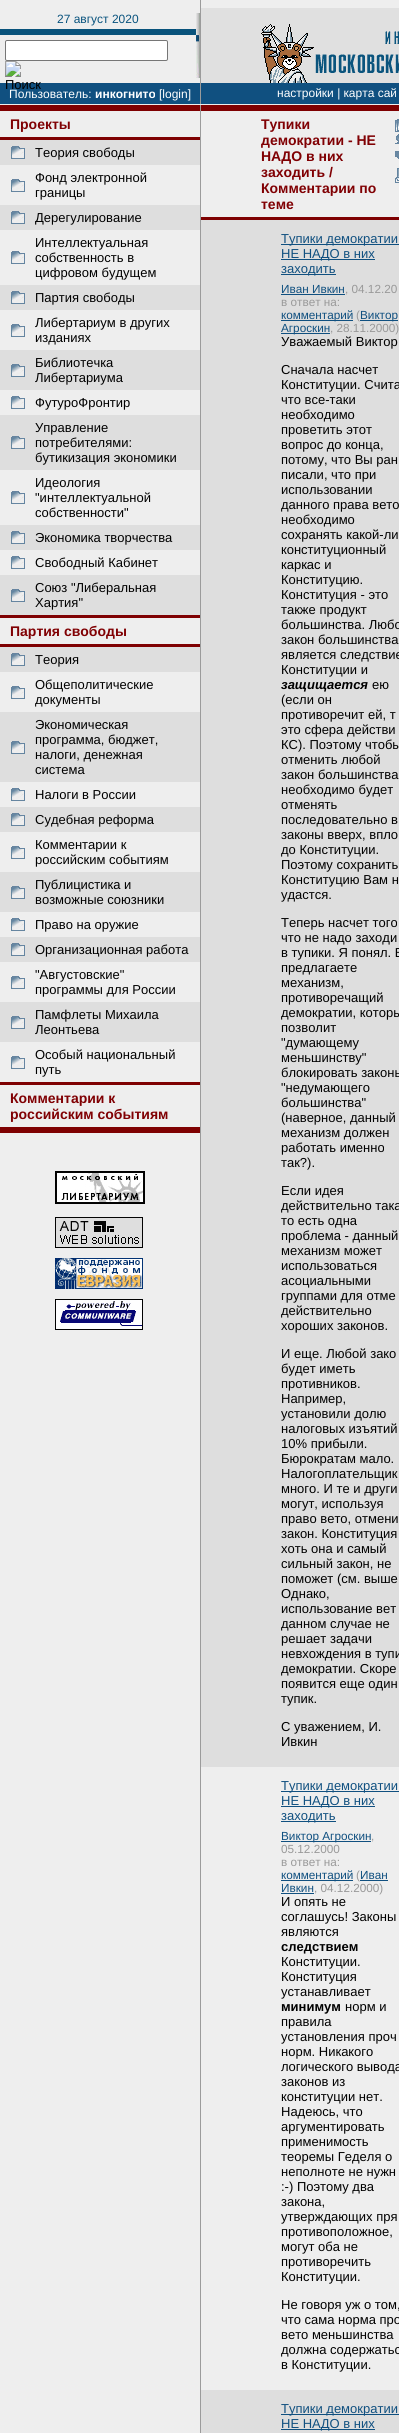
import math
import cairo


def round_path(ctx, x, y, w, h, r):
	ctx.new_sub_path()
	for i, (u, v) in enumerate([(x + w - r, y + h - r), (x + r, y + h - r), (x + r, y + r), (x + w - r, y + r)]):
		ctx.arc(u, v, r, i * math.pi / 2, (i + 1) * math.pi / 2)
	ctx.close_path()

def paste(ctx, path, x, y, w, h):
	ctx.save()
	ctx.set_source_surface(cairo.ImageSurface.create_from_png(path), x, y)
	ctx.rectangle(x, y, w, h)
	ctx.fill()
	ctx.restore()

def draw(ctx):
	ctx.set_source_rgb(0.933, 0.933, 0.933)
	ctx.paint()
	ctx.select_font_face('Liberation Sans')
	ctx.set_font_size(12)
	ctx.set_source_rgb(0.039, 0.325, 0.494)
	ctx.move_to(57, 23)
	ctx.show_text('27 август 2020')
	paste(ctx, 'media/1.png', 196, 13, 4, 65)
	ctx.set_source_rgb(0.039, 0.325, 0.486)
	ctx.rectangle(0, 29, 196, 6)
	ctx.fill()
	ctx.set_source_rgb(1, 1, 1)
	round_path(ctx, 5.5, 40.5, 162, 20, 1.5)
	ctx.fill_preserve()
	ctx.set_source_rgb(0.463, 0.463, 0.463)
	ctx.set_line_width(1)
	ctx.stroke()
	paste(ctx, 'media/2.png', 5, 61, 16, 16)
	ctx.set_source_rgb(0.063, 0.314, 0.502)
	ctx.rectangle(0, 83, 399, 21)
	ctx.fill()
	ctx.set_font_size(13)
	ctx.set_source_rgb(0, 0, 0)
	ctx.move_to(5, 89)
	ctx.show_text('Поиск')
	ctx.set_source_rgb(0.878, 0.878, 0.878)
	ctx.rectangle(201, 8, 198, 75)
	ctx.fill()
	paste(ctx, 'media/3.png', 261, 24, 53, 59)
	paste(ctx, 'media/4.png', 315, 31, 84, 42)
	ctx.set_source_rgb(0.608, 0.608, 0.608)
	ctx.rectangle(200, 0, 1, 83)
	ctx.fill()
	ctx.set_font_size(12)
	ctx.set_source_rgb(1, 1, 1)
	ctx.move_to(9, 98)
	ctx.show_text('Пользователь:')
	ctx.select_font_face('Liberation Sans', cairo.FONT_SLANT_NORMAL, cairo.FONT_WEIGHT_BOLD)
	ctx.move_to(95, 98)
	ctx.show_text('инкогнито')
	ctx.select_font_face('Liberation Sans')
	ctx.move_to(159, 98)
	ctx.show_text('[login]')
	ctx.set_source_rgb(0.608, 0.608, 0.608)
	ctx.rectangle(200, 83, 1, 21)
	ctx.fill()
	ctx.set_source_rgb(1, 1, 1)
	ctx.move_to(277, 97)
	ctx.show_text('настройки | карта сай')
	ctx.set_source_rgb(0.494, 0, 0.004)
	ctx.rectangle(0, 105, 399, 3)
	ctx.fill()
	ctx.set_source_rgb(0.608, 0.608, 0.608)
	ctx.rectangle(200, 105, 1, 2328)
	ctx.fill()
	ctx.set_source_rgb(0.494, 0, 0.004)
	ctx.rectangle(0, 108, 200, 3)
	ctx.rectangle(0, 137, 200, 3)
	ctx.fill()
	ctx.select_font_face('Liberation Sans', cairo.FONT_SLANT_NORMAL, cairo.FONT_WEIGHT_BOLD)
	ctx.set_font_size(14)
	ctx.set_source_rgb(0.502, 0, 0.012)
	ctx.move_to(10, 129)
	ctx.show_text('Проекты')
	ctx.set_source_rgb(0.871, 0.871, 0.871)
	ctx.rectangle(0, 140, 200, 25)
	ctx.fill()
	paste(ctx, 'media/5.png', 11, 146, 14, 13)
	ctx.select_font_face('Liberation Sans')
	ctx.set_font_size(13)
	ctx.set_source_rgb(0, 0, 0)
	ctx.move_to(35, 157)
	ctx.show_text('Теория свободы')
	paste(ctx, 'media/6.png', 11, 179, 14, 13)
	ctx.move_to(35, 182)
	ctx.show_text('Фонд электронной')
	ctx.move_to(35, 197)
	ctx.show_text('границы')
	ctx.set_source_rgb(0.871, 0.871, 0.871)
	ctx.rectangle(0, 205, 200, 25)
	ctx.fill()
	paste(ctx, 'media/5.png', 11, 211, 14, 13)
	ctx.set_source_rgb(0, 0, 0)
	ctx.move_to(35, 222)
	ctx.show_text('Дерегулирование')
	paste(ctx, 'media/6.png', 11, 251, 14, 13)
	for x, y, s in [
		(35, 247, 'Интеллектуальная'),
		(35, 262, 'собственность в'),
		(35, 277, 'цифровом будущем'),
	]:
		ctx.move_to(x, y)
		ctx.show_text(s)
	ctx.set_source_rgb(0.871, 0.871, 0.871)
	ctx.rectangle(0, 285, 200, 25)
	ctx.fill()
	paste(ctx, 'media/5.png', 11, 291, 14, 13)
	ctx.set_source_rgb(0, 0, 0)
	ctx.move_to(35, 302)
	ctx.show_text('Партия свободы')
	paste(ctx, 'media/6.png', 11, 324, 14, 13)
	ctx.move_to(35, 327)
	ctx.show_text('Либертариум в других')
	ctx.move_to(35, 342)
	ctx.show_text('изданиях')
	ctx.set_source_rgb(0.871, 0.871, 0.871)
	ctx.rectangle(0, 350, 200, 40)
	ctx.fill()
	paste(ctx, 'media/5.png', 11, 364, 14, 13)
	ctx.set_source_rgb(0, 0, 0)
	ctx.move_to(35, 367)
	ctx.show_text('Библиотечка')
	ctx.move_to(35, 382)
	ctx.show_text('Либертариума')
	paste(ctx, 'media/6.png', 11, 396, 14, 13)
	ctx.move_to(35, 407)
	ctx.show_text('ФутуроФронтир')
	ctx.set_source_rgb(0.871, 0.871, 0.871)
	ctx.rectangle(0, 415, 200, 55)
	ctx.fill()
	paste(ctx, 'media/5.png', 11, 436, 14, 13)
	ctx.set_source_rgb(0, 0, 0)
	for x, y, s in [
		(35, 432, 'Управление'),
		(35, 447, 'потребителями:'),
		(35, 462, 'бутикизация экономики'),
	]:
		ctx.move_to(x, y)
		ctx.show_text(s)
	paste(ctx, 'media/6.png', 11, 491, 14, 13)
	for x, y, s in [
		(35, 487, 'Идеология'),
		(35, 502, '"интеллектуальной'),
		(35, 517, 'собственности"'),
	]:
		ctx.move_to(x, y)
		ctx.show_text(s)
	ctx.set_source_rgb(0.871, 0.871, 0.871)
	ctx.rectangle(0, 525, 200, 25)
	ctx.fill()
	paste(ctx, 'media/5.png', 11, 531, 14, 13)
	ctx.set_source_rgb(0, 0, 0)
	ctx.move_to(35, 542)
	ctx.show_text('Экономика творчества')
	paste(ctx, 'media/6.png', 11, 556, 14, 13)
	ctx.move_to(35, 567)
	ctx.show_text('Свободный Кабинет')
	ctx.set_source_rgb(0.871, 0.871, 0.871)
	ctx.rectangle(0, 575, 200, 40)
	ctx.fill()
	paste(ctx, 'media/5.png', 11, 589, 14, 13)
	ctx.set_source_rgb(0, 0, 0)
	ctx.move_to(35, 592)
	ctx.show_text('Союз "Либеральная')
	ctx.move_to(35, 607)
	ctx.show_text('Хартия"')
	ctx.set_source_rgb(0.494, 0, 0.004)
	ctx.rectangle(0, 615, 200, 3)
	ctx.fill()
	ctx.rectangle(0, 644, 200, 3)
	ctx.fill()
	ctx.select_font_face('Liberation Sans', cairo.FONT_SLANT_NORMAL, cairo.FONT_WEIGHT_BOLD)
	ctx.set_font_size(14)
	ctx.set_source_rgb(0.502, 0, 0.012)
	ctx.move_to(10, 636)
	ctx.show_text('Партия свободы')
	ctx.set_source_rgb(0.871, 0.871, 0.871)
	ctx.rectangle(0, 647, 200, 25)
	ctx.fill()
	paste(ctx, 'media/5.png', 11, 653, 14, 13)
	ctx.select_font_face('Liberation Sans')
	ctx.set_font_size(13)
	ctx.set_source_rgb(0, 0, 0)
	ctx.move_to(35, 664)
	ctx.show_text('Теория')
	paste(ctx, 'media/6.png', 11, 686, 14, 13)
	ctx.move_to(35, 689)
	ctx.show_text('Общеполитические')
	ctx.move_to(35, 704)
	ctx.show_text('документы')
	ctx.set_source_rgb(0.871, 0.871, 0.871)
	ctx.rectangle(0, 712, 200, 70)
	ctx.fill()
	paste(ctx, 'media/5.png', 11, 741, 14, 13)
	ctx.set_source_rgb(0, 0, 0)
	for x, y, s in [
		(35, 729, 'Экономическая'),
		(35, 744, 'программа, бюджет,'),
		(35, 759, 'налоги, денежная'),
		(35, 774, 'система'),
	]:
		ctx.move_to(x, y)
		ctx.show_text(s)
	paste(ctx, 'media/6.png', 11, 788, 14, 13)
	ctx.move_to(35, 799)
	ctx.show_text('Налоги в России')
	ctx.set_source_rgb(0.871, 0.871, 0.871)
	ctx.rectangle(0, 807, 200, 25)
	ctx.fill()
	paste(ctx, 'media/5.png', 11, 813, 14, 13)
	ctx.set_source_rgb(0, 0, 0)
	ctx.move_to(35, 824)
	ctx.show_text('Судебная реформа')
	paste(ctx, 'media/6.png', 11, 846, 14, 13)
	ctx.move_to(35, 849)
	ctx.show_text('Комментарии к')
	ctx.move_to(35, 864)
	ctx.show_text('российским событиям')
	ctx.set_source_rgb(0.871, 0.871, 0.871)
	ctx.rectangle(0, 872, 200, 40)
	ctx.fill()
	paste(ctx, 'media/5.png', 11, 886, 14, 13)
	ctx.set_source_rgb(0, 0, 0)
	ctx.move_to(35, 889)
	ctx.show_text('Публицистика и')
	ctx.move_to(35, 904)
	ctx.show_text('возможные союзники')
	paste(ctx, 'media/6.png', 11, 918, 14, 13)
	ctx.move_to(35, 929)
	ctx.show_text('Право на оружие')
	ctx.set_source_rgb(0.871, 0.871, 0.871)
	ctx.rectangle(0, 937, 200, 25)
	ctx.fill()
	paste(ctx, 'media/5.png', 11, 943, 14, 13)
	ctx.set_source_rgb(0, 0, 0)
	ctx.move_to(35, 954)
	ctx.show_text('Организационная работа')
	paste(ctx, 'media/6.png', 11, 976, 14, 13)
	ctx.move_to(35, 979)
	ctx.show_text('"Августовские"')
	ctx.move_to(35, 994)
	ctx.show_text('программы для России')
	ctx.set_source_rgb(0.871, 0.871, 0.871)
	ctx.rectangle(0, 1002, 200, 40)
	ctx.fill()
	paste(ctx, 'media/5.png', 11, 1016, 14, 13)
	ctx.set_source_rgb(0, 0, 0)
	ctx.move_to(35, 1019)
	ctx.show_text('Памфлеты Михаила')
	ctx.move_to(35, 1034)
	ctx.show_text('Леонтьева')
	paste(ctx, 'media/6.png', 11, 1056, 14, 13)
	ctx.move_to(35, 1059)
	ctx.show_text('Особый национальный')
	ctx.move_to(35, 1074)
	ctx.show_text('путь')
	ctx.set_source_rgb(0.494, 0, 0.004)
	ctx.rectangle(0, 1082, 200, 3)
	ctx.fill()
	ctx.rectangle(0, 1127, 200, 6)
	ctx.fill()
	ctx.select_font_face('Liberation Sans', cairo.FONT_SLANT_NORMAL, cairo.FONT_WEIGHT_BOLD)
	ctx.set_font_size(14)
	ctx.set_source_rgb(0.502, 0, 0.012)
	ctx.move_to(10, 1103)
	ctx.show_text('Комментарии к')
	ctx.move_to(10, 1119)
	ctx.show_text('российским событиям')
	ctx.rectangle(55.5, 1171.5, 89, 32)
	ctx.set_source_rgb(0, 0, 0)
	ctx.stroke()
	paste(ctx, 'media/7.png', 56, 1172, 88, 31)
	paste(ctx, 'media/8.png', 55, 1217, 88, 31)
	paste(ctx, 'media/9.png', 55, 1258, 88, 31)
	paste(ctx, 'media/10.png', 55, 1299, 88, 31)
	ctx.set_source_rgb(0.494, 0, 0.004)
	ctx.rectangle(201, 108, 198, 3)
	ctx.fill()
	ctx.set_source_rgb(0.502, 0, 0.012)
	for x, y, s in [
		(261, 129, 'Тупики'),
		(261, 145, 'демократии - НЕ'),
		(261, 161, 'НАДО в них'),
		(261, 177, 'заходить /'),
		(261, 193, 'Комментарии по'),
		(261, 209, 'теме'),
	]:
		ctx.move_to(x, y)
		ctx.show_text(s)
	paste(ctx, 'media/11.png', 395, 119, 4, 13)
	paste(ctx, 'media/12.png', 395, 134, 4, 10)
	paste(ctx, 'media/13.png', 395, 151, 4, 8)
	paste(ctx, 'media/14.png', 395, 168, 4, 15)
	ctx.set_source_rgb(0.494, 0, 0.004)
	ctx.rectangle(201, 217, 198, 3)
	ctx.fill()
	ctx.set_source_rgb(0.871, 0.871, 0.871)
	ctx.rectangle(201, 220, 198, 1547)
	ctx.fill()
	ctx.set_source_rgb(0.063, 0.314, 0.502)
	ctx.rectangle(281, 244, 118, 1)
	ctx.fill()
	ctx.select_font_face('Liberation Sans')
	ctx.set_font_size(13)
	ctx.move_to(281, 243)
	ctx.show_text('Тупики демократии')
	ctx.rectangle(281, 259, 94, 1)
	ctx.fill()
	ctx.move_to(281, 258)
	ctx.show_text('НЕ НАДО в них')
	ctx.rectangle(281, 274, 55, 1)
	ctx.fill()
	ctx.move_to(281, 273)
	ctx.show_text('заходить')
	ctx.set_font_size(11.75)
	ctx.move_to(281, 293)
	ctx.show_text('Иван Ивкин')
	ctx.rectangle(281, 294, 64, 1)
	ctx.fill()
	ctx.set_source_rgb(0.6, 0.6, 0.6)
	ctx.move_to(345, 293)
	ctx.show_text(', 04.12.20')
	ctx.move_to(281, 306)
	ctx.show_text('в ответ на:')
	ctx.set_source_rgb(0.063, 0.314, 0.502)
	ctx.rectangle(281, 320, 72, 1)
	ctx.fill()
	ctx.move_to(281, 319)
	ctx.show_text('комментарий')
	ctx.set_source_rgb(0.6, 0.6, 0.6)
	ctx.move_to(356, 319)
	ctx.show_text('(')
	ctx.set_source_rgb(0.063, 0.314, 0.502)
	ctx.rectangle(360, 320, 38, 1)
	ctx.fill()
	ctx.move_to(360, 319)
	ctx.show_text('Виктор')
	ctx.rectangle(281, 333, 49, 1)
	ctx.fill()
	ctx.move_to(281, 332)
	ctx.show_text('Агроскин')
	ctx.set_source_rgb(0.6, 0.6, 0.6)
	ctx.move_to(330, 332)
	ctx.show_text(', 28.11.2000)')
	ctx.set_font_size(13)
	ctx.set_source_rgb(0, 0, 0)
	for x, y, s in [
		(281, 346, 'Уважаемый Виктор'),
		(281, 374, 'Сначала насчет'),
		(281, 389, 'Конституции. Счита'),
		(281, 404, 'что все-таки'),
		(281, 419, 'необходимо'),
		(281, 434, 'проветить этот'),
		(281, 449, 'вопрос до конца,'),
		(281, 464, 'потому, что Вы ран'),
		(281, 479, 'писали, что при'),
		(281, 494, 'использовании'),
		(281, 509, 'данного права вето'),
		(281, 524, 'необходимо'),
		(281, 539, 'сохранять какой-ли'),
		(281, 554, 'конституционный'),
		(281, 569, 'каркас и'),
		(281, 584, 'Конституцию.'),
		(281, 599, 'Конституция - это'),
		(281, 614, 'также продукт'),
		(281, 629, 'большинства. Любо'),
		(281, 644, 'закон большинства'),
		(281, 659, 'является следствие'),
		(281, 674, 'Конституции и'),
	]:
		ctx.move_to(x, y)
		ctx.show_text(s)
	ctx.select_font_face('Liberation Sans', cairo.FONT_SLANT_ITALIC, cairo.FONT_WEIGHT_BOLD)
	ctx.move_to(281, 689)
	ctx.show_text('защищается')
	ctx.select_font_face('Liberation Sans')
	for x, y, s in [
		(372, 689, 'ею'),
		(281, 704, '(если он'),
		(281, 719, 'противоречит ей, т'),
		(281, 734, 'это сфера действи'),
		(281, 749, 'КС). Поэтому чтобы'),
		(281, 764, 'отменить любой'),
		(281, 779, 'закон большинства'),
		(281, 794, 'необходимо будет'),
		(281, 809, 'отменять'),
		(281, 824, 'последовательно в'),
		(281, 839, 'законы вверх, впло'),
		(281, 854, 'до Конституции.'),
		(281, 869, 'Поэтому сохранить'),
		(281, 884, 'Конституцию Вам н'),
		(281, 899, 'удастся.'),
		(281, 927, 'Теперь насчет того'),
		(281, 942, 'что не надо заходи'),
		(281, 957, 'в тупики. Я понял. В'),
		(281, 972, 'предлагаете'),
		(281, 987, 'механизм,'),
		(281, 1002, 'противоречащий'),
		(281, 1017, 'демократии, которы'),
		(281, 1032, 'позволит'),
		(281, 1047, '"думающему'),
		(281, 1062, 'меньшинству"'),
		(281, 1077, 'блокировать законы'),
		(281, 1092, '"недумающего'),
		(281, 1107, 'большинства"'),
		(281, 1122, '(наверное, данный'),
		(281, 1137, 'механизм должен'),
		(281, 1152, 'работать именно'),
		(281, 1167, 'так?).'),
		(281, 1195, 'Если идея'),
		(281, 1210, 'действительно така'),
		(281, 1225, 'то есть одна'),
		(281, 1240, 'проблема - данный'),
		(281, 1255, 'механизм может'),
		(281, 1270, 'использоваться'),
		(281, 1285, 'асоциальными'),
		(281, 1300, 'группами для отме'),
		(281, 1315, 'действительно'),
		(281, 1330, 'хороших законов.'),
		(281, 1358, 'И еще. Любой зако'),
		(281, 1373, 'будет иметь'),
		(281, 1388, 'противников.'),
		(281, 1403, 'Например,'),
		(281, 1418, 'установили долю'),
		(281, 1433, 'налоговых изъятий'),
		(281, 1448, '10% прибыли.'),
		(281, 1463, 'Бюрократам мало.'),
		(281, 1478, 'Налогоплательщик'),
		(281, 1493, 'много. И те и други'),
		(281, 1508, 'могут, используя'),
		(281, 1523, 'право вето, отмени'),
		(281, 1538, 'закон. Конституция'),
		(281, 1553, 'хоть она и самый'),
		(281, 1568, 'сильный закон, не'),
		(281, 1583, 'поможет (см. выше'),
		(281, 1598, 'Однако,'),
		(281, 1613, 'использование вет'),
		(281, 1628, 'данном случае не'),
		(281, 1643, 'решает задачи'),
		(281, 1658, 'невхождения в тупи'),
		(281, 1673, 'демократии. Скоре'),
		(281, 1688, 'появится еще один'),
		(281, 1703, 'тупик.'),
		(281, 1731, 'С уважением, И.'),
		(281, 1746, 'Ивкин'),
	]:
		ctx.move_to(x, y)
		ctx.show_text(s)
	ctx.set_source_rgb(0.063, 0.314, 0.502)
	ctx.rectangle(281, 1791, 118, 1)
	ctx.fill()
	ctx.move_to(281, 1790)
	ctx.show_text('Тупики демократии')
	ctx.rectangle(281, 1806, 94, 1)
	ctx.fill()
	ctx.move_to(281, 1805)
	ctx.show_text('НЕ НАДО в них')
	ctx.rectangle(281, 1821, 55, 1)
	ctx.fill()
	ctx.move_to(281, 1820)
	ctx.show_text('заходить')
	ctx.rectangle(281, 1841, 90, 1)
	ctx.fill()
	ctx.set_font_size(11.75)
	ctx.move_to(281, 1840)
	ctx.show_text('Виктор Агроскин')
	ctx.set_source_rgb(0.6, 0.6, 0.6)
	for x, y, s in [
		(371, 1840, ','),
		(281, 1853, '05.12.2000'),
		(281, 1866, 'в ответ на:'),
	]:
		ctx.move_to(x, y)
		ctx.show_text(s)
	ctx.set_source_rgb(0.063, 0.314, 0.502)
	ctx.rectangle(281, 1880, 72, 1)
	ctx.fill()
	ctx.move_to(281, 1879)
	ctx.show_text('комментарий')
	ctx.set_source_rgb(0.6, 0.6, 0.6)
	ctx.move_to(356, 1879)
	ctx.show_text('(')
	ctx.set_source_rgb(0.063, 0.314, 0.502)
	ctx.move_to(360, 1879)
	ctx.show_text('Иван')
	ctx.rectangle(360, 1880, 28, 1)
	ctx.fill()
	ctx.move_to(281, 1892)
	ctx.show_text('Ивкин')
	ctx.rectangle(281, 1893, 33, 1)
	ctx.fill()
	ctx.set_source_rgb(0.6, 0.6, 0.6)
	ctx.move_to(314, 1892)
	ctx.show_text(', 04.12.2000)')
	ctx.set_font_size(13)
	ctx.set_source_rgb(0, 0, 0)
	for x, y, s in [
		(281, 1906, 'И опять не'),
		(281, 1921, 'соглашусь! Законы'),
		(281, 1936, 'являются'),
	]:
		ctx.move_to(x, y)
		ctx.show_text(s)
	ctx.select_font_face('Liberation Sans', cairo.FONT_SLANT_NORMAL, cairo.FONT_WEIGHT_BOLD)
	ctx.move_to(281, 1951)
	ctx.show_text('следствием')
	ctx.select_font_face('Liberation Sans')
	for x, y, s in [
		(281, 1966, 'Конституции.'),
		(281, 1981, 'Конституция'),
		(281, 1996, 'устанавливает'),
	]:
		ctx.move_to(x, y)
		ctx.show_text(s)
	ctx.select_font_face('Liberation Sans', cairo.FONT_SLANT_NORMAL, cairo.FONT_WEIGHT_BOLD)
	ctx.move_to(281, 2011)
	ctx.show_text('минимум')
	ctx.select_font_face('Liberation Sans')
	for x, y, s in [
		(345, 2011, 'норм и'),
		(281, 2026, 'правила'),
		(281, 2041, 'установления проч'),
		(281, 2056, 'норм. Никакого'),
		(281, 2071, 'логического вывода'),
		(281, 2086, 'законов из'),
		(281, 2101, 'конституции нет.'),
		(281, 2116, 'Надеюсь, что'),
		(281, 2131, 'аргументировать'),
		(281, 2146, 'применимость'),
		(281, 2161, 'теоремы Геделя о'),
		(281, 2176, 'неполноте не нужн'),
		(281, 2191, ':-) Поэтому два'),
		(281, 2206, 'закона,'),
		(281, 2221, 'утверждающих пря'),
		(281, 2236, 'противоположное,'),
		(281, 2251, 'могут оба не'),
		(281, 2266, 'противоречить'),
		(281, 2281, 'Конституции.'),
		(281, 2309, 'Не говоря уж о том,'),
		(281, 2324, 'что сама норма про'),
		(281, 2339, 'вето меньшинства'),
		(281, 2354, 'должна содержатьс'),
		(281, 2369, 'в Конституции.'),
	]:
		ctx.move_to(x, y)
		ctx.show_text(s)
	ctx.set_source_rgb(0.871, 0.871, 0.871)
	ctx.rectangle(201, 2390, 198, 43)
	ctx.fill()
	ctx.set_source_rgb(0.063, 0.314, 0.502)
	ctx.rectangle(281, 2414, 118, 1)
	ctx.fill()
	ctx.move_to(281, 2413)
	ctx.show_text('Тупики демократии')
	ctx.rectangle(281, 2429, 94, 1)
	ctx.fill()
	ctx.move_to(281, 2428)
	ctx.show_text('НЕ НАДО в них')


surface = cairo.ImageSurface(cairo.FORMAT_RGB24, 399, 2433)
ctx = cairo.Context(surface)
options = cairo.FontOptions()
options.set_hint_metrics(cairo.HINT_METRICS_OFF)
options.set_hint_style(cairo.HINT_STYLE_NONE)
ctx.set_font_options(options)
ctx.set_miter_limit(4)
draw(ctx)
surface.write_to_png('image.png')
